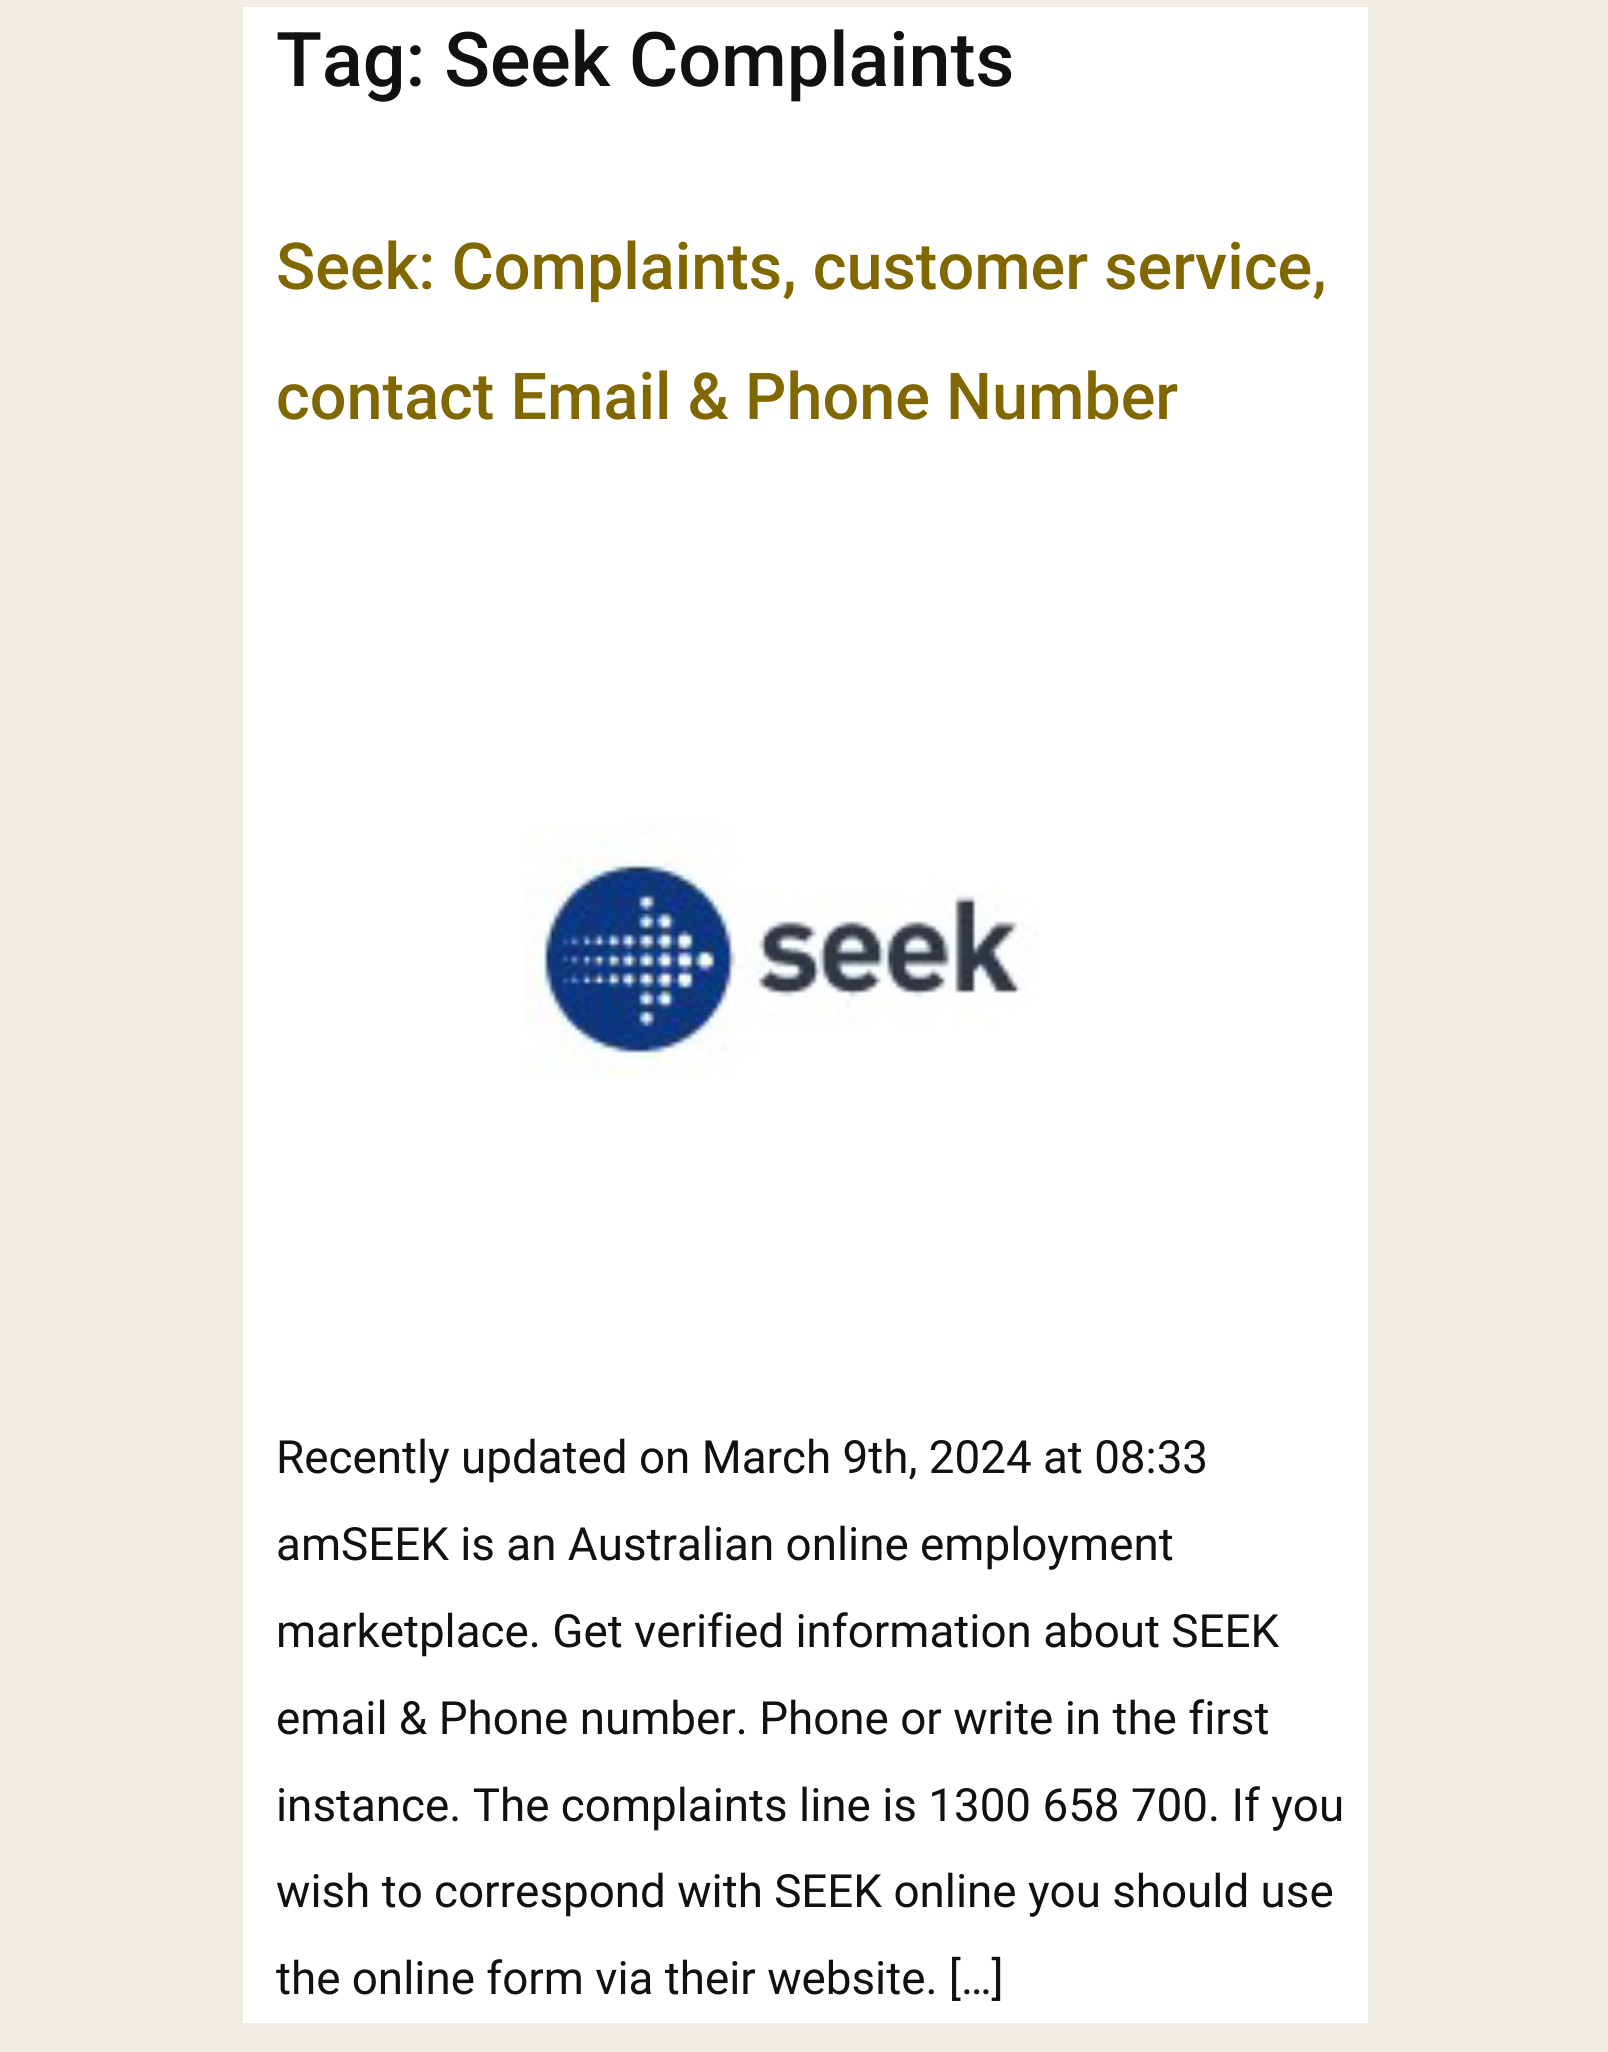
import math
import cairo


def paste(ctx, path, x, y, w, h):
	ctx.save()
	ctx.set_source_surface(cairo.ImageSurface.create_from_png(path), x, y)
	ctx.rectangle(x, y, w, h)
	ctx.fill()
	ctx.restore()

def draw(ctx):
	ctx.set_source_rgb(0.941, 0.929, 0.89)
	ctx.paint()
	ctx.set_source_rgb(1, 1, 1)
	ctx.rectangle(243, 7, 1125, 2016)
	ctx.fill()
	ctx.select_font_face('Roboto Medium')
	ctx.set_font_size(75.5)
	ctx.set_source_rgb(0.067, 0.067, 0.067)
	ctx.move_to(276, 86)
	ctx.show_text('Tag: Seek Complaints')
	ctx.set_font_size(64.75)
	ctx.set_source_rgb(0.506, 0.404, 0)
	ctx.move_to(276, 289)
	ctx.show_text('Seek: Complaints, customer service,')
	ctx.move_to(276, 419)
	ctx.show_text('contact Email & Phone Number')
	paste(ctx, 'media/1.png', 523, 821, 516, 259)
	ctx.select_font_face('Roboto')
	ctx.set_font_size(45.75)
	ctx.set_source_rgb(0.067, 0.067, 0.067)
	for x, y, s in [
		(276, 1473, 'Recently updated on March 9th, 2024 at 08:33'),
		(276, 1560, 'amSEEK is an Australian online employment'),
		(276, 1647, 'marketplace. Get verified information about SEEK'),
		(276, 1734, 'email & Phone number. Phone or write in the first'),
		(276, 1821, 'instance. The complaints line is 1300 658 700. If you'),
		(276, 1907, 'wish to correspond with SEEK online you should use'),
		(276, 1994, 'the online form via their website. […]'),
	]:
		ctx.move_to(x, y)
		ctx.show_text(s)


surface = cairo.ImageSurface(cairo.FORMAT_RGB24, 1608, 2052)
ctx = cairo.Context(surface)
options = cairo.FontOptions()
options.set_hint_metrics(cairo.HINT_METRICS_OFF)
options.set_hint_style(cairo.HINT_STYLE_NONE)
ctx.set_font_options(options)
ctx.set_miter_limit(4)
draw(ctx)
surface.write_to_png('image.png')
